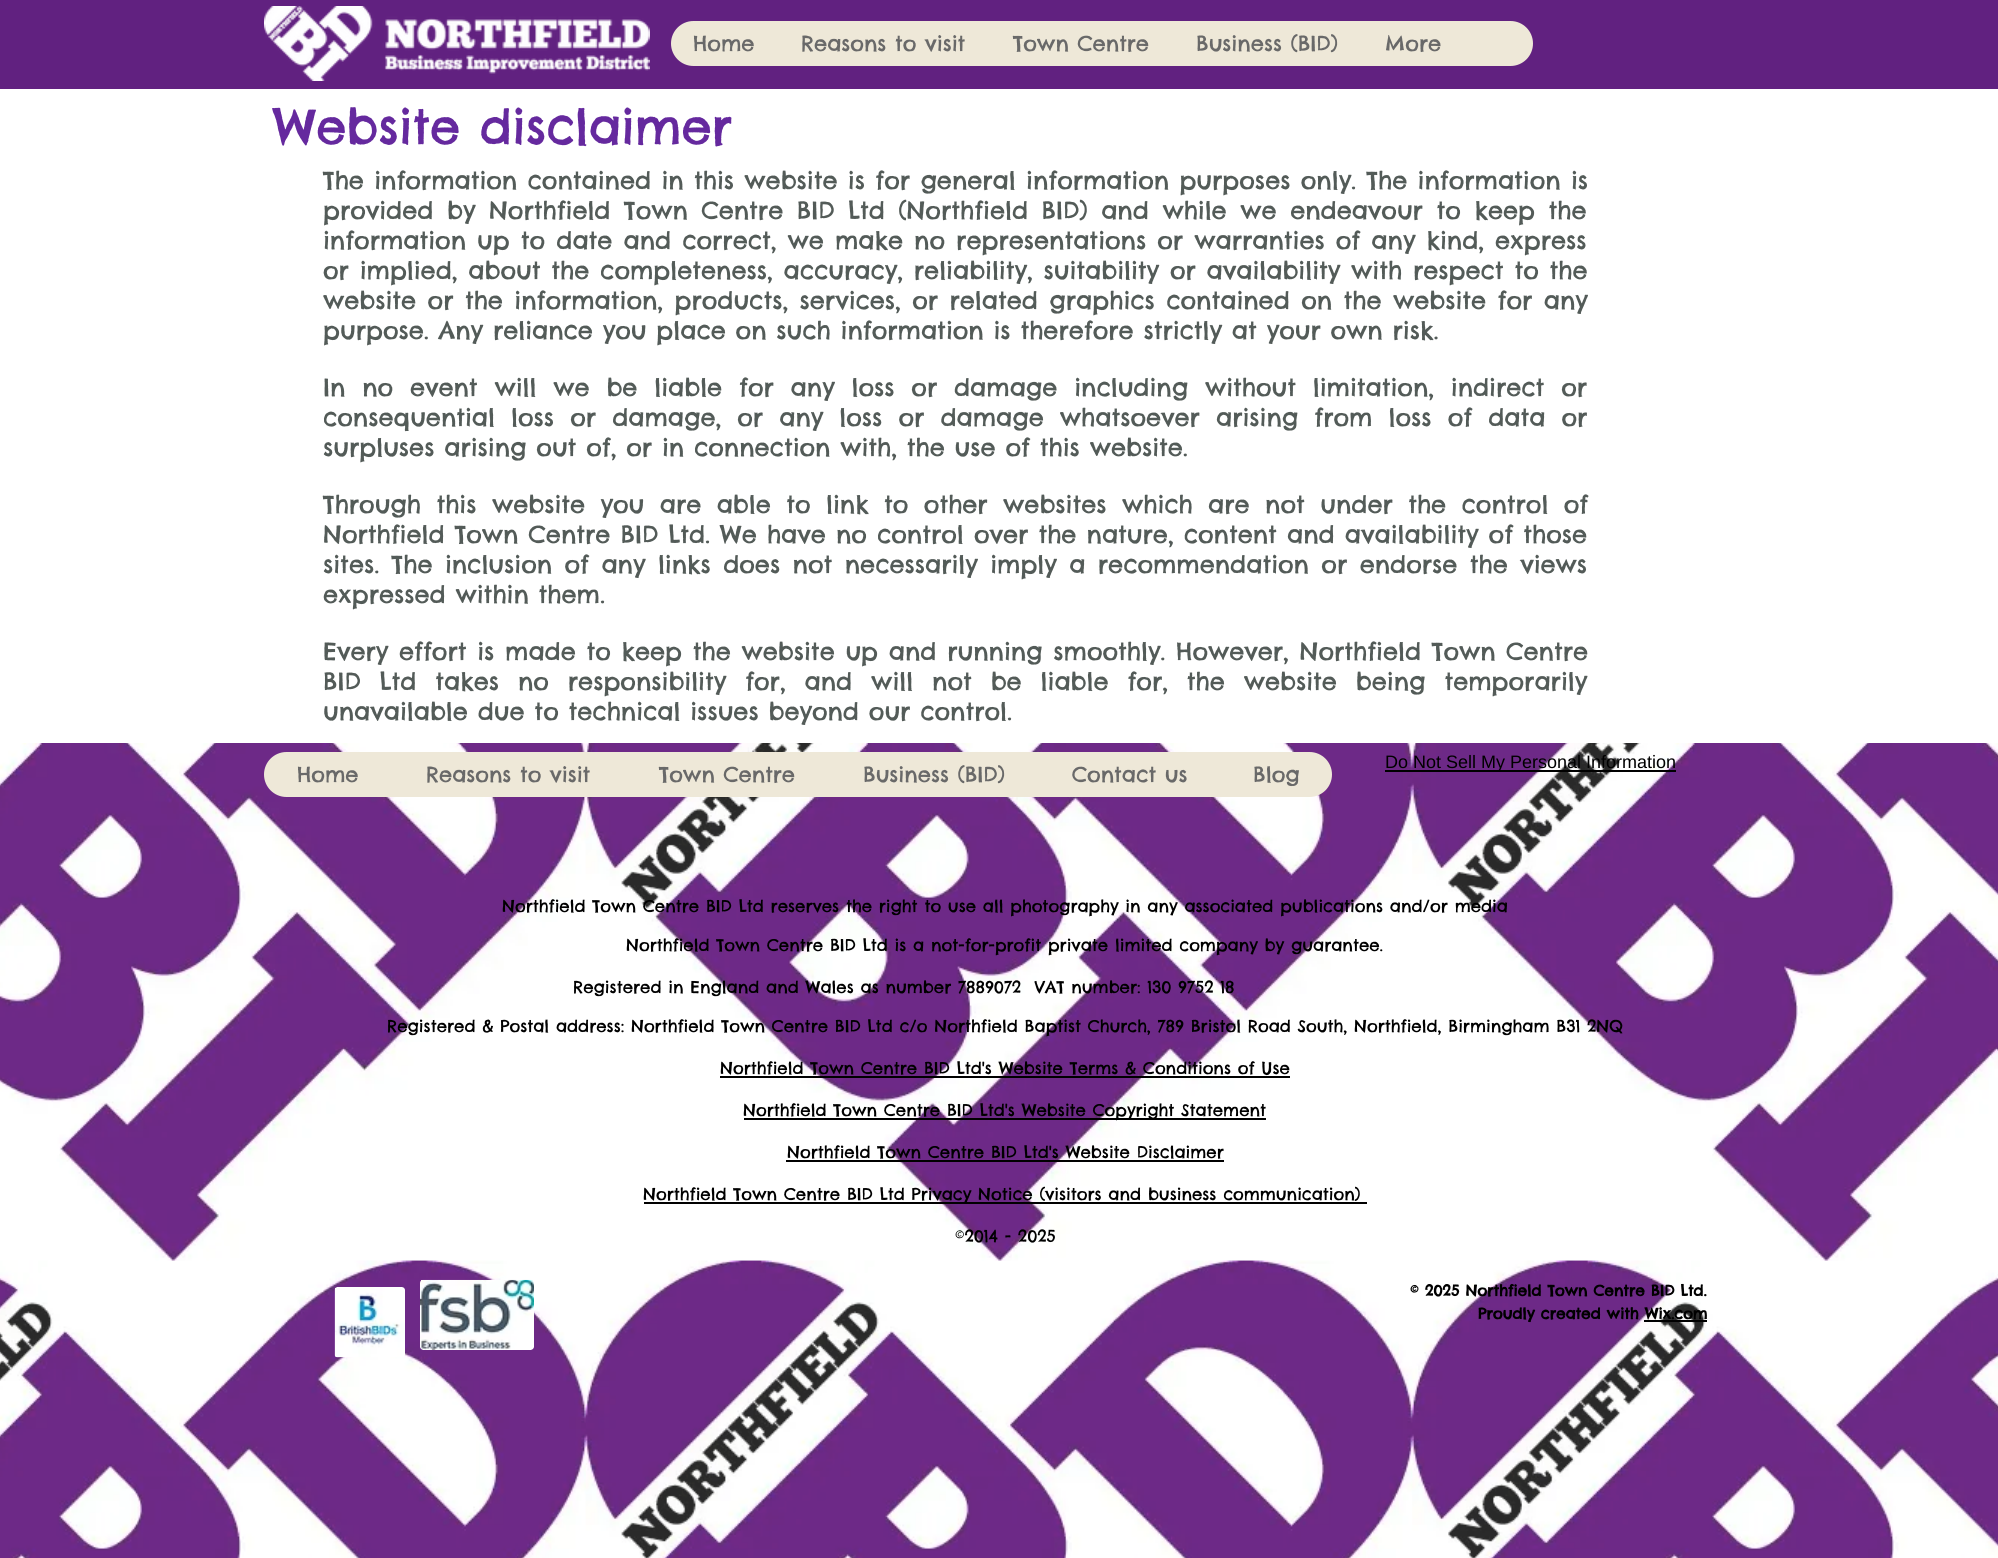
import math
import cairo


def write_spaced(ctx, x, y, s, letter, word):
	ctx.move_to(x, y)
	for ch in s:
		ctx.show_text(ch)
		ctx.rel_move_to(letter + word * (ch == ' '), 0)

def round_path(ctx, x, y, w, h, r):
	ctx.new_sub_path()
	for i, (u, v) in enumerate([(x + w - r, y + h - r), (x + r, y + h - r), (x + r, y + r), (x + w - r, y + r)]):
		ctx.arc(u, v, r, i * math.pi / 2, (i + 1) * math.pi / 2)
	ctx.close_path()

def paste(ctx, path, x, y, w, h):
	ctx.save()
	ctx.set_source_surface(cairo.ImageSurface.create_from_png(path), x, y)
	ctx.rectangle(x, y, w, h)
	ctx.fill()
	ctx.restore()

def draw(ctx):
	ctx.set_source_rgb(1, 1, 1)
	ctx.paint()
	ctx.set_source_rgb(0.38, 0.129, 0.502)
	ctx.rectangle(0, 0, 1998, 89)
	ctx.fill()
	paste(ctx, 'media/1.png', 264, 6, 386, 75)
	ctx.set_source_rgb(0.933, 0.91, 0.847)
	round_path(ctx, 671, 21, 862, 45, 22.5)
	ctx.fill()
	ctx.select_font_face('Chelsea Market')
	ctx.set_font_size(21)
	ctx.set_source_rgb(0.412, 0.412, 0.412)
	for x, y, s in [
		(693, 51, 'Home'),
		(801, 51, 'Reasons to visit'),
		(1013, 51, 'Town Centre'),
		(1196, 51, 'Business (BID)'),
		(1385, 51, 'More'),
	]:
		ctx.move_to(x, y)
		ctx.show_text(s)
	ctx.set_font_size(48)
	ctx.set_source_rgb(0.396, 0.161, 0.62)
	ctx.move_to(273, 144)
	ctx.show_text('Website disclaimer')
	ctx.set_font_size(24)
	ctx.set_source_rgb(0.325, 0.357, 0.345)
	write_spaced(ctx, 323, 189, 'The information contained in this website is for general information purposes only. The information is', 0, 0.5)
	write_spaced(ctx, 323, 219, 'provided by Northfield Town Centre BID Ltd (Northfield BID) and while we endeavour to keep the', 0, 3.75)
	write_spaced(ctx, 323, 249, 'information up to date and correct, we make no representations or warranties of any kind, express', 0, 1.25)
	write_spaced(ctx, 323, 279, 'or implied, about the completeness, accuracy, reliability, suitability or availability with respect to the', 0, 1)
	write_spaced(ctx, 323, 309, 'website or the information, products, services, or related graphics contained on the website for any', 0, 1.6)
	ctx.move_to(323, 339)
	ctx.show_text('purpose. Any reliance you place on such information is therefore strictly at your own risk.')
	write_spaced(ctx, 323, 396, 'In no event will we be liable for any loss or damage including without limitation, indirect or', 0, 7)
	write_spaced(ctx, 323, 426, 'consequential loss or damage, or any loss or damage whatsoever arising from loss of data or', 0, 6.25)
	ctx.move_to(323, 456)
	ctx.show_text('surpluses arising out of, or in connection with, the use of this website.')
	write_spaced(ctx, 323, 513, 'Through this website you are able to link to other websites which are not under the control of', 0, 5.6)
	write_spaced(ctx, 323, 543, 'Northfield Town Centre BID Ltd. We have no control over the nature, content and availability of those', 0, 0.3)
	write_spaced(ctx, 323, 573, 'sites. The inclusion of any links does not necessarily imply a recommendation or endorse the views', 0, 2.6)
	ctx.move_to(323, 603)
	ctx.show_text('expressed within them.')
	write_spaced(ctx, 323, 660, 'Every effort is made to keep the website up and running smoothly. However, Northfield Town Centre', 0, 0.9)
	write_spaced(ctx, 323, 690, 'BID Ltd takes no responsibility for, and will not be liable for, the website being temporarily', 0, 9.1)
	ctx.move_to(323, 720)
	ctx.show_text('unavailable due to technical issues beyond our control.')
	paste(ctx, 'media/4.png', 0, 743, 1998, 815)
	ctx.set_source_rgb(0, 0, 0)
	ctx.rectangle(1385, 770, 291, 2)
	ctx.fill()
	ctx.select_font_face('Liberation Sans')
	ctx.set_font_size(18)
	ctx.move_to(1385, 768)
	ctx.show_text('Do Not Sell My Personal Information')
	ctx.set_source_rgb(0.933, 0.91, 0.847)
	round_path(ctx, 264, 752, 1068, 45, 22.5)
	ctx.fill()
	ctx.select_font_face('Chelsea Market')
	ctx.set_font_size(21)
	ctx.set_source_rgb(0.412, 0.412, 0.412)
	for x, y, s in [
		(297, 782, 'Home'),
		(426, 782, 'Reasons to visit'),
		(659, 782, 'Town Centre'),
		(863, 782, 'Business (BID)'),
		(1072, 782, 'Contact us'),
		(1253, 782, 'Blog'),
	]:
		ctx.move_to(x, y)
		ctx.show_text(s)
	ctx.set_font_size(16.5)
	ctx.set_source_rgb(0, 0, 0)
	for x, y, s in [
		(502, 912, 'Northfield Town Centre BID Ltd reserves the right to use all photography in any associated publications and/or media'),
		(626, 951, 'Northfield Town Centre BID Ltd is a not-for-profit private limited company by guarantee.'),
		(573, 993, 'Registered in England and Wales as number 7889072  VAT number: 130 9752 18'),
		(387, 1032, 'Registered & Postal address: Northfield Town Centre BID Ltd c/o Northfield Baptist Church, 789 Bristol Road South, Northfield, Birmingham B31 2NQ'),
		(720, 1074, 'Northfield Town Centre BID Ltd\'s Website Terms & Conditions of Use'),
	]:
		ctx.move_to(x, y)
		ctx.show_text(s)
	ctx.rectangle(720, 1076, 570, 2)
	ctx.fill()
	ctx.rectangle(744, 1118, 522, 2)
	ctx.fill()
	ctx.move_to(743, 1116)
	ctx.show_text('Northfield Town Centre BID Ltd\'s Website Copyright Statement')
	ctx.move_to(787, 1158)
	ctx.show_text('Northfield Town Centre BID Ltd\'s Website Disclaimer')
	ctx.rectangle(786, 1160, 438, 2)
	ctx.fill()
	ctx.rectangle(644, 1202, 723, 2)
	ctx.fill()
	ctx.move_to(643, 1200)
	ctx.show_text('Northfield Town Centre BID Ltd Privacy Notice (visitors and business communication)')
	ctx.move_to(955, 1242)
	ctx.show_text('©2014 - 2025')
	paste(ctx, 'media/2.png', 334, 1287, 71, 71)
	paste(ctx, 'media/3.png', 420, 1279, 114, 71)
	ctx.select_font_face('Chelsea Market', cairo.FONT_SLANT_NORMAL, cairo.FONT_WEIGHT_BOLD)
	ctx.set_font_size(15)
	ctx.move_to(1410, 1296)
	ctx.show_text('© 2025 Northfield Town Centre BID Ltd.')
	ctx.move_to(1478, 1319)
	ctx.show_text('Proudly created with Wix.com')
	ctx.rectangle(1644, 1320, 63, 2)
	ctx.fill()


surface = cairo.ImageSurface(cairo.FORMAT_RGB24, 1998, 1558)
ctx = cairo.Context(surface)
options = cairo.FontOptions()
options.set_hint_metrics(cairo.HINT_METRICS_OFF)
options.set_hint_style(cairo.HINT_STYLE_NONE)
ctx.set_font_options(options)
ctx.set_miter_limit(4)
draw(ctx)
surface.write_to_png('image.png')
